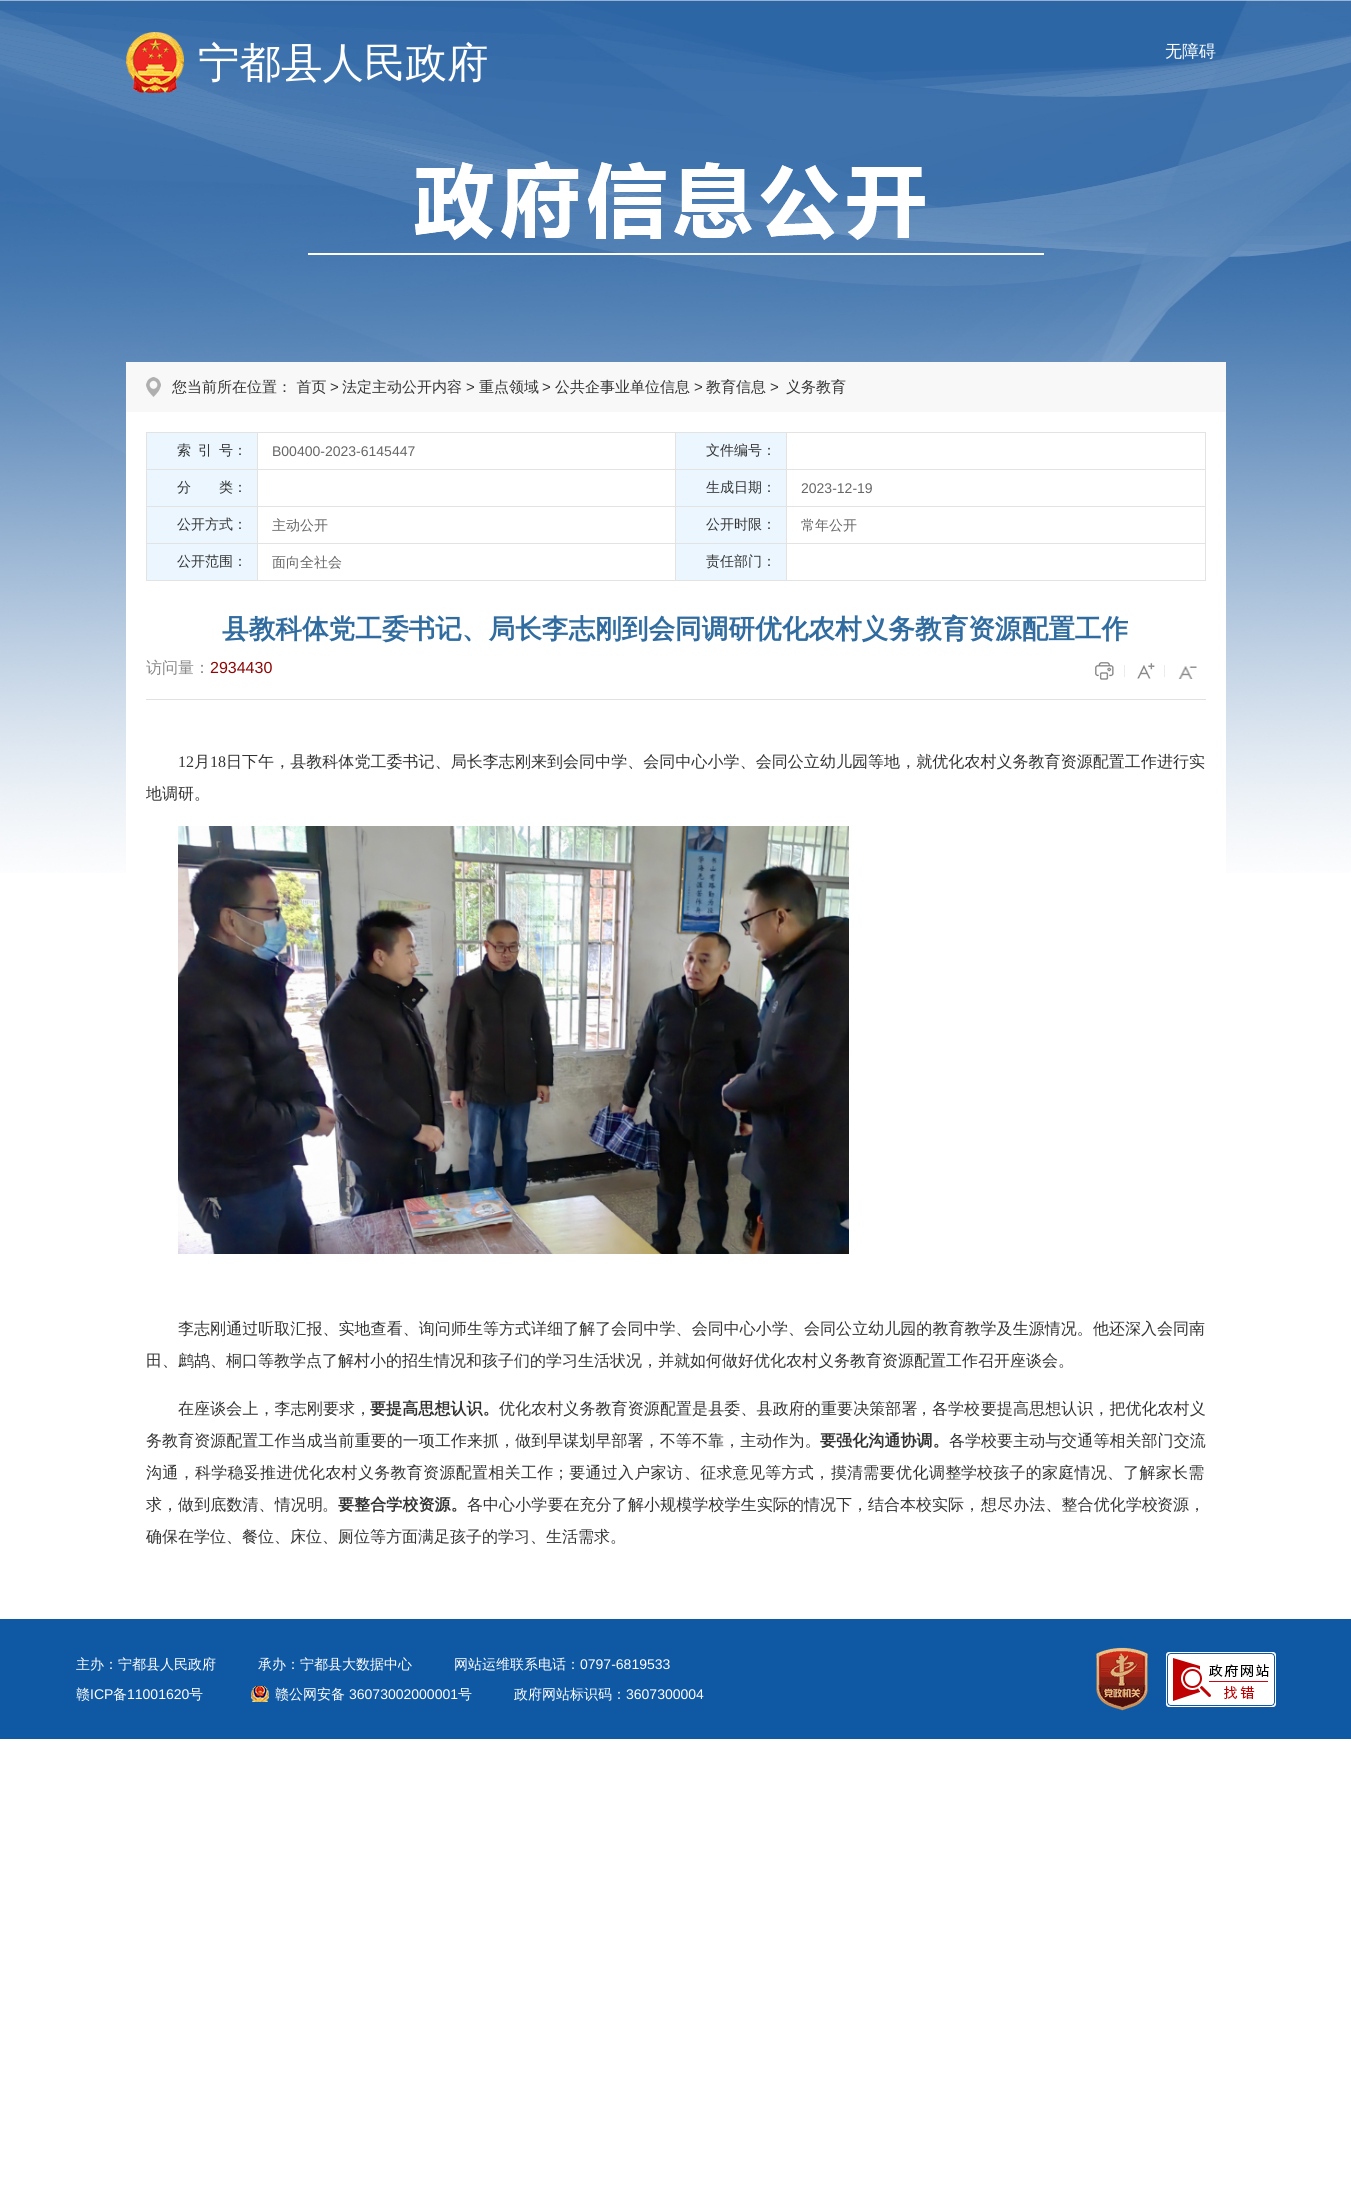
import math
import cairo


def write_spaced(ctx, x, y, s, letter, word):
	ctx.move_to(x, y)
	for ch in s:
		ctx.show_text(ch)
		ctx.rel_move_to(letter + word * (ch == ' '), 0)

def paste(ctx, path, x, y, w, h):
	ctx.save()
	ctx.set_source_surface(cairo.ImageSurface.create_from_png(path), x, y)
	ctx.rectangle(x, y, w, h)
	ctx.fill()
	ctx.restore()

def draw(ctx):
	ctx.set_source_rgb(1, 1, 1)
	ctx.paint()
	paste(ctx, 'media/1.png', 0, 0, 1351, 873)
	paste(ctx, 'media/2.png', 126, 32, 58, 62)
	ctx.select_font_face('WenQuanYi Zen Hei Medium')
	ctx.set_font_size(41.5)
	ctx.set_source_rgb(1, 1, 1)
	ctx.move_to(198, 77)
	ctx.show_text('宁都县人民政府')
	ctx.set_font_size(17)
	ctx.move_to(1165, 57)
	ctx.show_text('无障碍')
	paste(ctx, 'media/3.png', 308, 161, 736, 94)
	ctx.set_source_rgb(0.969, 0.969, 0.969)
	ctx.rectangle(126, 362, 1100, 50)
	ctx.fill()
	paste(ctx, 'media/4.png', 146, 377, 15, 20)
	ctx.set_font_size(15)
	ctx.set_source_rgb(0.2, 0.2, 0.2)
	ctx.move_to(172, 392)
	ctx.show_text('您当前所在位置： 首页')
	ctx.select_font_face('Liberation Sans')
	ctx.move_to(330, 392)
	ctx.show_text('>')
	ctx.select_font_face('WenQuanYi Zen Hei Medium')
	ctx.move_to(342, 392)
	ctx.show_text('法定主动公开内容')
	ctx.select_font_face('Liberation Sans')
	ctx.move_to(466, 392)
	ctx.show_text('>')
	ctx.select_font_face('WenQuanYi Zen Hei Medium')
	ctx.move_to(479, 392)
	ctx.show_text('重点领域')
	ctx.select_font_face('Liberation Sans')
	ctx.move_to(542, 392)
	ctx.show_text('>')
	ctx.select_font_face('WenQuanYi Zen Hei Medium')
	ctx.move_to(555, 392)
	ctx.show_text('公共企事业单位信息')
	ctx.select_font_face('Liberation Sans')
	ctx.move_to(694, 392)
	ctx.show_text('>')
	ctx.select_font_face('WenQuanYi Zen Hei Medium')
	ctx.move_to(706, 392)
	ctx.show_text('教育信息')
	ctx.select_font_face('Liberation Sans')
	ctx.move_to(770, 392)
	ctx.show_text('>')
	ctx.select_font_face('WenQuanYi Zen Hei Medium')
	ctx.move_to(786, 392)
	ctx.show_text('义务教育')
	ctx.set_source_rgb(1, 1, 1)
	ctx.rectangle(126, 412, 1100, 461)
	ctx.fill()
	ctx.set_source_rgb(0.89, 0.89, 0.89)
	ctx.rectangle(146, 432, 1060, 1)
	ctx.rectangle(1205, 432, 1, 149)
	ctx.rectangle(146, 469, 1059, 1)
	ctx.fill()
	ctx.set_source_rgb(0.918, 0.961, 0.996)
	ctx.rectangle(147, 433, 110, 36)
	ctx.fill()
	ctx.set_source_rgb(0.89, 0.89, 0.89)
	ctx.rectangle(257, 433, 1, 36)
	ctx.rectangle(146, 433, 1, 36)
	ctx.fill()
	ctx.set_font_size(14)
	ctx.set_source_rgb(0.2, 0.2, 0.2)
	for x, y, s in [
		(177, 455, '索'),
		(198, 455, '引'),
		(219, 455, '号：'),
	]:
		ctx.move_to(x, y)
		ctx.show_text(s)
	ctx.select_font_face('Liberation Sans')
	ctx.set_source_rgb(0.4, 0.4, 0.4)
	ctx.move_to(272, 456)
	ctx.show_text('B00400-2023-6145447')
	ctx.set_source_rgb(0.918, 0.961, 0.996)
	ctx.rectangle(676, 433, 110, 36)
	ctx.fill()
	ctx.set_source_rgb(0.89, 0.89, 0.89)
	ctx.rectangle(786, 433, 1, 36)
	ctx.rectangle(675, 433, 1, 36)
	ctx.fill()
	ctx.select_font_face('WenQuanYi Zen Hei Medium')
	ctx.set_source_rgb(0.2, 0.2, 0.2)
	ctx.move_to(706, 455)
	ctx.show_text('文件编号：')
	ctx.set_source_rgb(0.89, 0.89, 0.89)
	ctx.rectangle(146, 506, 1059, 1)
	ctx.fill()
	ctx.set_source_rgb(0.918, 0.961, 0.996)
	ctx.rectangle(147, 470, 110, 36)
	ctx.fill()
	ctx.set_source_rgb(0.89, 0.89, 0.89)
	ctx.rectangle(257, 470, 1, 36)
	ctx.rectangle(146, 470, 1, 36)
	ctx.fill()
	ctx.set_source_rgb(0.2, 0.2, 0.2)
	ctx.move_to(177, 492)
	ctx.show_text('分　　类：')
	ctx.set_source_rgb(0.918, 0.961, 0.996)
	ctx.rectangle(676, 470, 110, 36)
	ctx.fill()
	ctx.set_source_rgb(0.89, 0.89, 0.89)
	ctx.rectangle(786, 470, 1, 36)
	ctx.rectangle(675, 470, 1, 36)
	ctx.fill()
	ctx.set_source_rgb(0.2, 0.2, 0.2)
	ctx.move_to(706, 492)
	ctx.show_text('生成日期：')
	ctx.select_font_face('Liberation Sans')
	ctx.set_source_rgb(0.4, 0.4, 0.4)
	ctx.move_to(801, 493)
	ctx.show_text('2023-12-19')
	ctx.set_source_rgb(0.89, 0.89, 0.89)
	ctx.rectangle(146, 543, 1059, 1)
	ctx.fill()
	ctx.set_source_rgb(0.918, 0.961, 0.996)
	ctx.rectangle(147, 507, 110, 36)
	ctx.fill()
	ctx.set_source_rgb(0.89, 0.89, 0.89)
	ctx.rectangle(257, 507, 1, 36)
	ctx.rectangle(146, 507, 1, 36)
	ctx.fill()
	ctx.select_font_face('WenQuanYi Zen Hei Medium')
	ctx.set_source_rgb(0.2, 0.2, 0.2)
	ctx.move_to(177, 529)
	ctx.show_text('公开方式：')
	ctx.set_source_rgb(0.4, 0.4, 0.4)
	ctx.move_to(272, 530)
	ctx.show_text('主动公开')
	ctx.set_source_rgb(0.918, 0.961, 0.996)
	ctx.rectangle(676, 507, 110, 36)
	ctx.fill()
	ctx.set_source_rgb(0.89, 0.89, 0.89)
	ctx.rectangle(786, 507, 1, 36)
	ctx.rectangle(675, 507, 1, 36)
	ctx.fill()
	ctx.set_source_rgb(0.2, 0.2, 0.2)
	ctx.move_to(706, 529)
	ctx.show_text('公开时限：')
	ctx.set_source_rgb(0.4, 0.4, 0.4)
	ctx.move_to(801, 530)
	ctx.show_text('常年公开')
	ctx.set_source_rgb(0.89, 0.89, 0.89)
	ctx.rectangle(146, 580, 1059, 1)
	ctx.fill()
	ctx.set_source_rgb(0.918, 0.961, 0.996)
	ctx.rectangle(147, 544, 110, 36)
	ctx.fill()
	ctx.set_source_rgb(0.89, 0.89, 0.89)
	ctx.rectangle(257, 544, 1, 36)
	ctx.rectangle(146, 544, 1, 36)
	ctx.fill()
	ctx.set_source_rgb(0.2, 0.2, 0.2)
	ctx.move_to(177, 566)
	ctx.show_text('公开范围：')
	ctx.set_source_rgb(0.4, 0.4, 0.4)
	ctx.move_to(272, 567)
	ctx.show_text('面向全社会')
	ctx.set_source_rgb(0.918, 0.961, 0.996)
	ctx.rectangle(676, 544, 110, 36)
	ctx.fill()
	ctx.set_source_rgb(0.89, 0.89, 0.89)
	ctx.rectangle(786, 544, 1, 36)
	ctx.rectangle(675, 544, 1, 36)
	ctx.fill()
	ctx.set_source_rgb(0.2, 0.2, 0.2)
	ctx.move_to(706, 566)
	ctx.show_text('责任部门：')
	ctx.select_font_face('WenQuanYi Zen Hei', cairo.FONT_SLANT_NORMAL, cairo.FONT_WEIGHT_BOLD)
	ctx.set_font_size(26.65)
	ctx.set_source_rgb(0.188, 0.424, 0.624)
	ctx.move_to(222, 638)
	ctx.show_text('县教科体党工委书记、局长李志刚到会同调研优化农村义务教育资源配置工作')
	ctx.set_source_rgb(0.882, 0.882, 0.882)
	ctx.rectangle(146, 699, 1060, 1)
	ctx.fill()
	ctx.select_font_face('WenQuanYi Zen Hei Medium')
	ctx.set_font_size(16)
	ctx.set_source_rgb(0.533, 0.533, 0.533)
	ctx.move_to(146, 673)
	ctx.show_text('访问量：')
	ctx.select_font_face('Liberation Sans')
	ctx.set_source_rgb(0.553, 0.027, 0.027)
	ctx.move_to(210, 673)
	ctx.show_text('2934430')
	paste(ctx, 'media/5.png', 1095, 662, 19, 18)
	ctx.set_source_rgb(0.925, 0.925, 0.925)
	ctx.rectangle(1124, 665, 1, 12)
	ctx.fill()
	paste(ctx, 'media/6.png', 1137, 662, 18, 17)
	ctx.rectangle(1164, 665, 1, 12)
	ctx.fill()
	paste(ctx, 'media/7.png', 1178, 666, 19, 13)
	ctx.select_font_face('Liberation Serif')
	ctx.set_source_rgb(0.2, 0.2, 0.2)
	write_spaced(ctx, 178, 767, '12', 0.05, 0)
	ctx.select_font_face('WenQuanYi Zen Hei Medium')
	write_spaced(ctx, 194, 767, '月', 0.05, 0)
	ctx.select_font_face('Liberation Serif')
	write_spaced(ctx, 210, 767, '18', 0.05, 0)
	ctx.select_font_face('WenQuanYi Zen Hei Medium')
	write_spaced(ctx, 226, 767, '日下午，县教科体党工委书记、局长李志刚来到会同中学、会同中心小学、会同公立幼儿园等地，就优化农村义务教育资源配置工作进行实', 0.05, 0)
	ctx.save()
	ctx.rectangle(146, 700, 1060, 899)
	ctx.clip()
	ctx.move_to(146, 799)
	ctx.show_text('地调研。')
	ctx.restore()
	paste(ctx, 'media/8.png', 178, 826, 671, 428)
	write_spaced(ctx, 178, 1334, '李志刚通过听取汇报、实地查看、询问师生等方式详细了解了会同中学、会同中心小学、会同公立幼儿园的教育教学及生源情况。他还深入', 0.05, 0)
	ctx.move_to(1157, 1334)
	ctx.show_text('会同南')
	ctx.move_to(146, 1366)
	ctx.show_text('田、鹧鸪、桐口等教学点了解村小的招生情况和孩子们的学习生活状况，并就如何做好优化农村义务教育资源配置工作召开座谈会。')
	write_spaced(ctx, 178, 1414, '在座谈会上，李志刚要求，', 0.1, 0)
	ctx.select_font_face('WenQuanYi Zen Hei', cairo.FONT_SLANT_NORMAL, cairo.FONT_WEIGHT_BOLD)
	write_spaced(ctx, 370, 1414, '要提高思想认识。', 0.1, 0)
	ctx.select_font_face('WenQuanYi Zen Hei Medium')
	ctx.move_to(499, 1414)
	ctx.show_text('优')
	write_spaced(ctx, 515, 1414, '化农村义务教育资源配置是县委、县政府的重要决策部署', 0.1, 0)
	ctx.move_to(916, 1414)
	ctx.show_text('，各学校')
	write_spaced(ctx, 981, 1414, '要提高思想认识，把优化农村义', 0.05, 0)
	write_spaced(ctx, 146, 1446, '务教育资源配置工作当成当前重要的一项工作来抓，做到', 0.05, 0)
	write_spaced(ctx, 547, 1446, '早谋划早部署，不等不靠，主动作为。', 0.1, 0)
	ctx.select_font_face('WenQuanYi Zen Hei', cairo.FONT_SLANT_NORMAL, cairo.FONT_WEIGHT_BOLD)
	write_spaced(ctx, 820, 1446, '要强化沟通协调。', 0.1, 0)
	ctx.select_font_face('WenQuanYi Zen Hei Medium')
	ctx.move_to(949, 1446)
	ctx.show_text('各')
	write_spaced(ctx, 965, 1446, '学校要主动与交通等相关部门交流', 0.05, 0)
	write_spaced(ctx, 146, 1478, '沟通，科学稳妥推进优化农村义务教育资源配置相关工作', 0.3, 0)
	write_spaced(ctx, 553, 1478, '；要通过入户家访', 0.25, 0)
	write_spaced(ctx, 684, 1478, '、征求意见等方式，', 0.25, 0)
	ctx.move_to(831, 1478)
	ctx.show_text('摸清')
	write_spaced(ctx, 863, 1478, '需要优化调整', 0.5, 0)
	ctx.move_to(961, 1478)
	ctx.show_text('学')
	write_spaced(ctx, 977, 1478, '校孩子的家庭情况、了解家长需', 0.25, 0)
	ctx.move_to(146, 1510)
	ctx.show_text('求')
	write_spaced(ctx, 162, 1510, '，做到底数清、情况明', 0.1, 0)
	ctx.move_to(322, 1510)
	ctx.show_text('。')
	ctx.select_font_face('WenQuanYi Zen Hei', cairo.FONT_SLANT_NORMAL, cairo.FONT_WEIGHT_BOLD)
	write_spaced(ctx, 338, 1510, '要整合学校资源。', 0.1, 0)
	ctx.select_font_face('WenQuanYi Zen Hei Medium')
	ctx.move_to(467, 1510)
	ctx.show_text('各')
	write_spaced(ctx, 483, 1510, '中心小学要在充分了解小规模学校学生实际', 0.1, 0)
	for x, y, s in [
		(788, 1510, '的情'),
		(820, 1510, '况下，结合'),
		(900, 1510, '本校实际，'),
	]:
		ctx.move_to(x, y)
		ctx.show_text(s)
	write_spaced(ctx, 981, 1510, '想尽办法、整合优化学校', 0.1, 0)
	ctx.move_to(1157, 1510)
	ctx.show_text('资源，')
	ctx.move_to(146, 1542)
	ctx.show_text('确保在学位、餐位、床位、厕位等方面满足孩子的学习、生活需求。')
	ctx.set_source_rgb(0.059, 0.349, 0.643)
	ctx.rectangle(0, 1619, 1351, 120)
	ctx.fill()
	ctx.set_font_size(14)
	ctx.set_source_rgb(1, 1, 1)
	for x, y, s in [
		(76, 1669, '主办：宁都县人民政府'),
		(258, 1669, '承办：宁都县大数据中心'),
		(454, 1669, '网站运维联系电话：'),
	]:
		ctx.move_to(x, y)
		ctx.show_text(s)
	ctx.select_font_face('Liberation Sans')
	ctx.move_to(580, 1669)
	ctx.show_text('0797-6819533')
	ctx.save()
	ctx.rectangle(76, 1619, 1200, 120)
	ctx.clip()
	ctx.select_font_face('WenQuanYi Zen Hei Medium')
	ctx.move_to(76, 1699)
	ctx.show_text('赣')
	ctx.restore()
	ctx.move_to(90, 1699)
	ctx.show_text('ICP')
	ctx.select_font_face('WenQuanYi Zen Hei Medium')
	ctx.move_to(113, 1699)
	ctx.show_text('备')
	ctx.select_font_face('Liberation Sans')
	ctx.move_to(127, 1699)
	ctx.show_text('11001620')
	ctx.select_font_face('WenQuanYi Zen Hei Medium')
	ctx.move_to(189, 1699)
	ctx.show_text('号')
	paste(ctx, 'media/9.png', 251, 1686, 18, 16)
	ctx.move_to(275, 1699)
	ctx.show_text('赣公网安备')
	ctx.select_font_face('Liberation Sans')
	ctx.move_to(349, 1699)
	ctx.show_text('36073002000001')
	ctx.select_font_face('WenQuanYi Zen Hei Medium')
	ctx.move_to(458, 1699)
	ctx.show_text('号')
	ctx.move_to(514, 1699)
	ctx.show_text('政府网站标识码：')
	ctx.select_font_face('Liberation Sans')
	ctx.move_to(626, 1699)
	ctx.show_text('3607300004')
	paste(ctx, 'media/10.png', 1096, 1647, 52, 64)
	paste(ctx, 'media/11.png', 1166, 1652, 110, 55)


surface = cairo.ImageSurface(cairo.FORMAT_RGB24, 1351, 2197)
ctx = cairo.Context(surface)
options = cairo.FontOptions()
options.set_hint_metrics(cairo.HINT_METRICS_OFF)
options.set_hint_style(cairo.HINT_STYLE_NONE)
ctx.set_font_options(options)
ctx.set_miter_limit(4)
draw(ctx)
surface.write_to_png('image.png')
